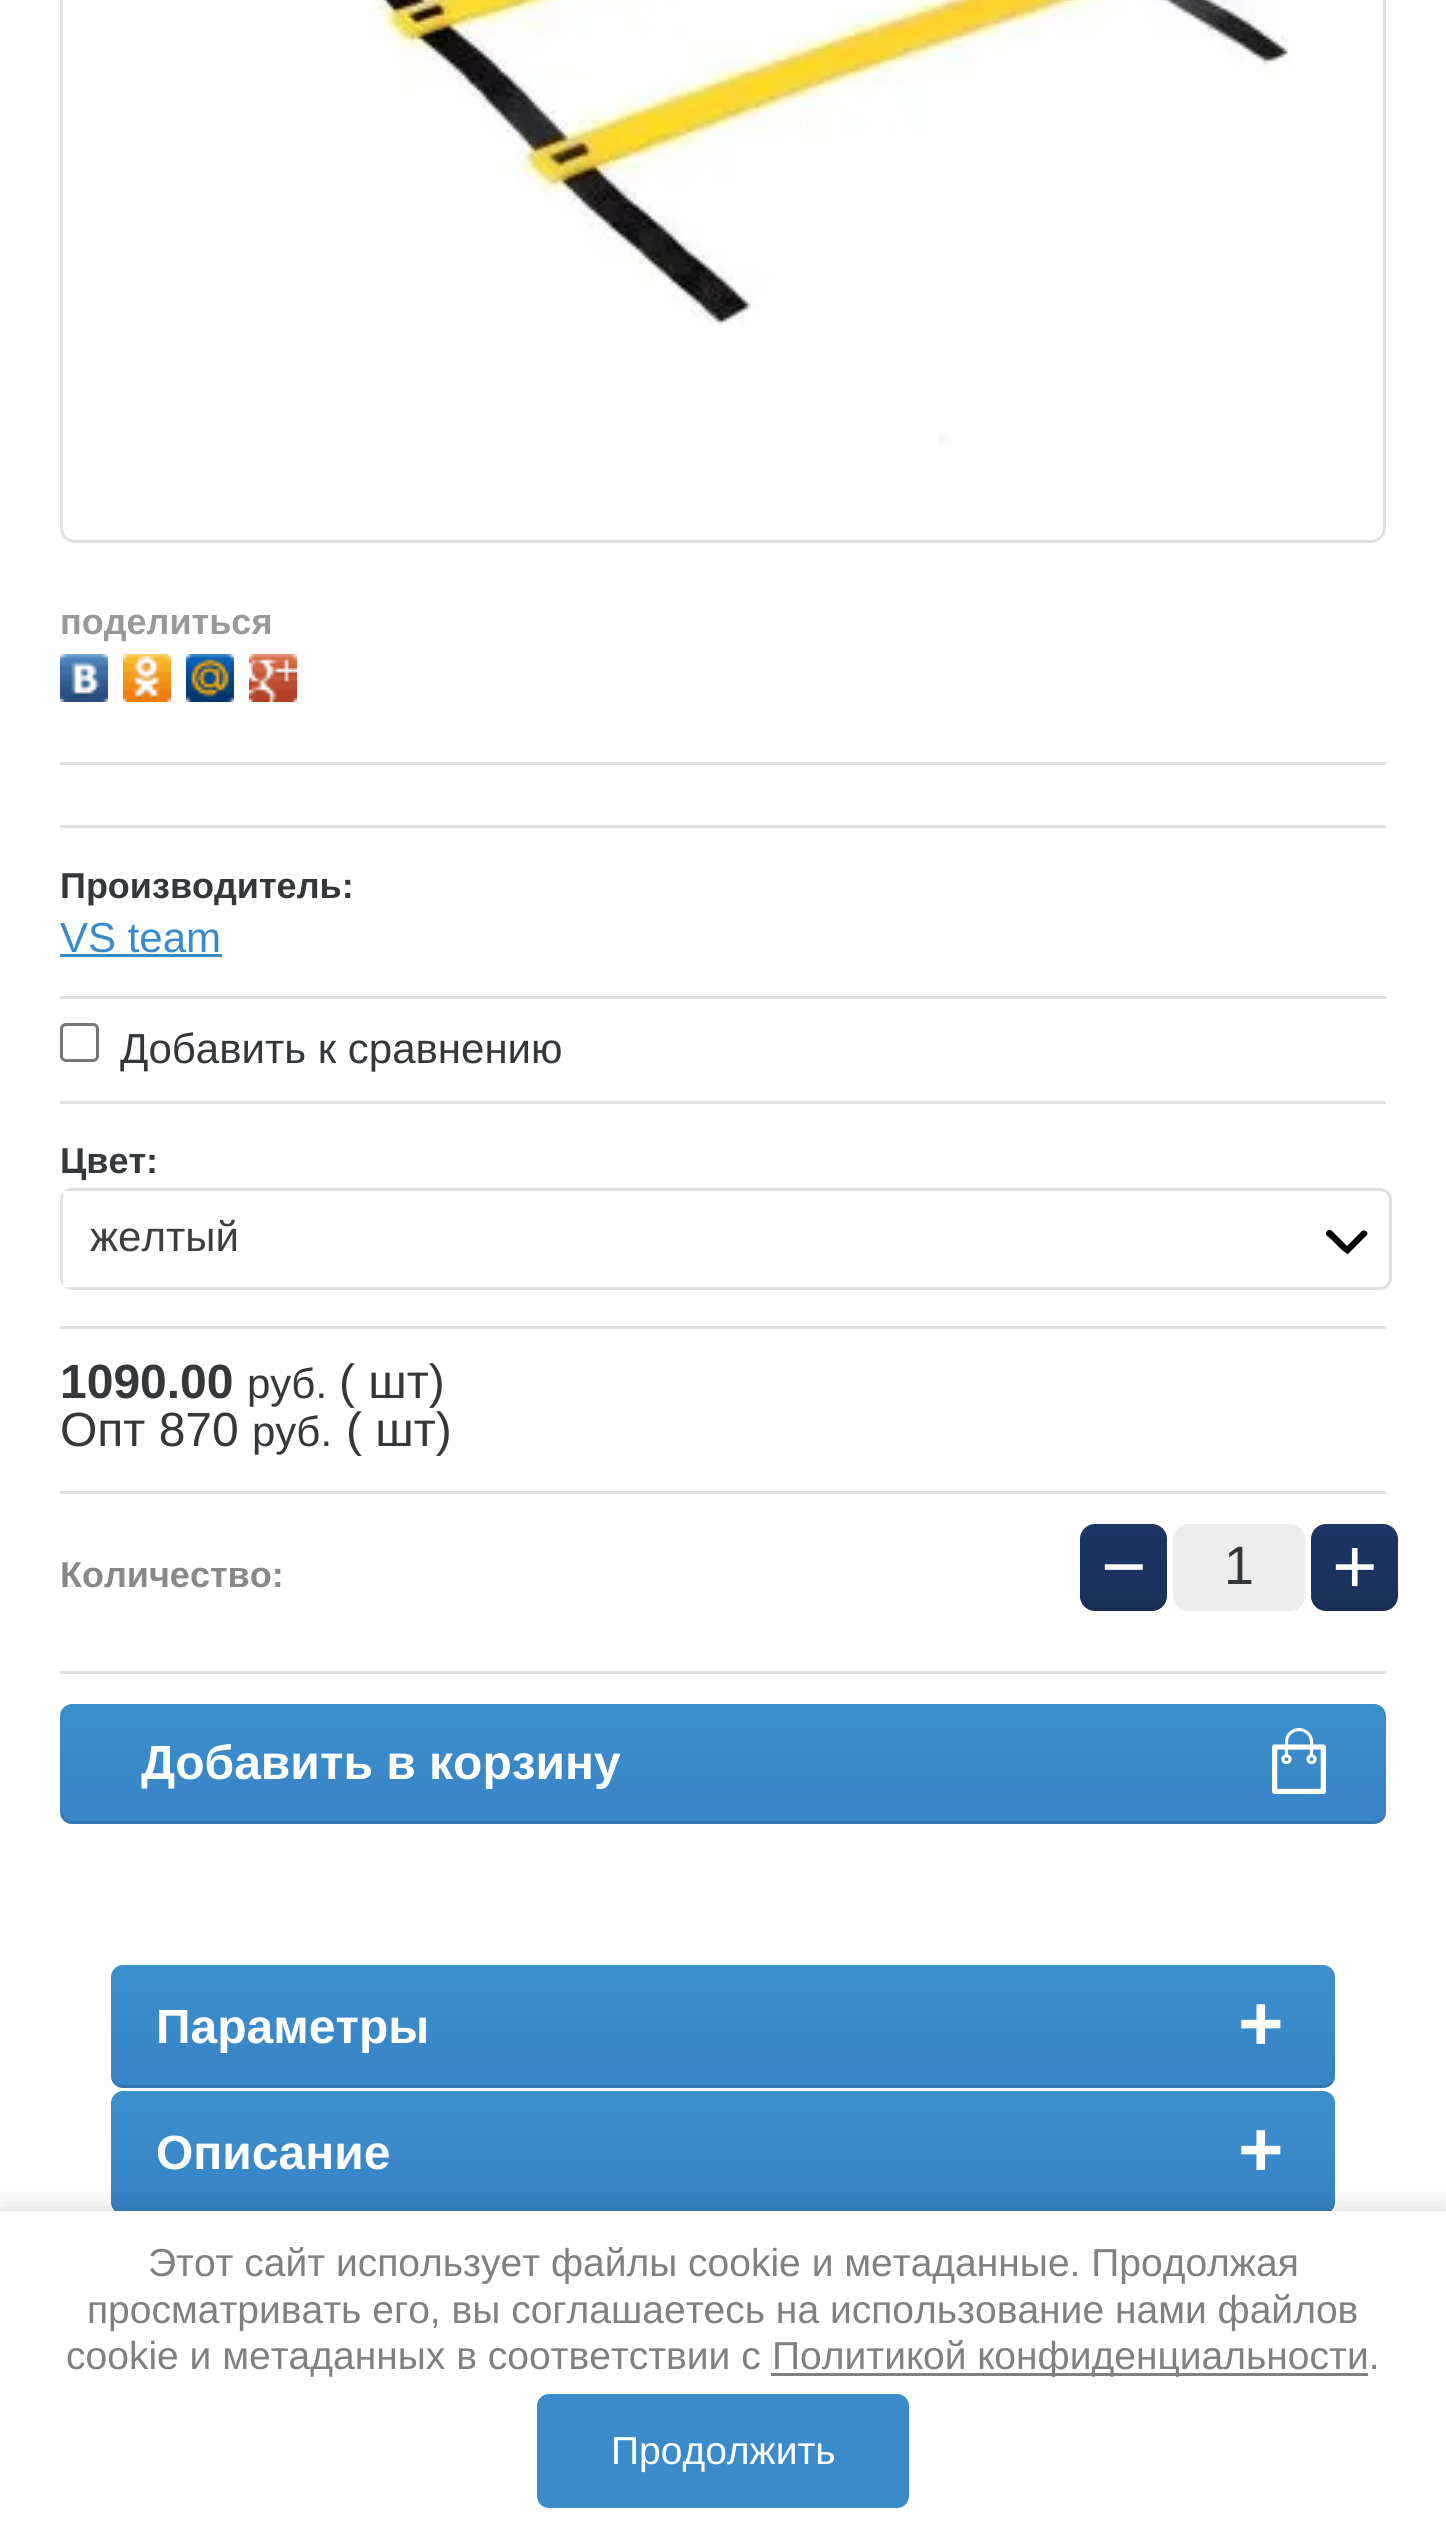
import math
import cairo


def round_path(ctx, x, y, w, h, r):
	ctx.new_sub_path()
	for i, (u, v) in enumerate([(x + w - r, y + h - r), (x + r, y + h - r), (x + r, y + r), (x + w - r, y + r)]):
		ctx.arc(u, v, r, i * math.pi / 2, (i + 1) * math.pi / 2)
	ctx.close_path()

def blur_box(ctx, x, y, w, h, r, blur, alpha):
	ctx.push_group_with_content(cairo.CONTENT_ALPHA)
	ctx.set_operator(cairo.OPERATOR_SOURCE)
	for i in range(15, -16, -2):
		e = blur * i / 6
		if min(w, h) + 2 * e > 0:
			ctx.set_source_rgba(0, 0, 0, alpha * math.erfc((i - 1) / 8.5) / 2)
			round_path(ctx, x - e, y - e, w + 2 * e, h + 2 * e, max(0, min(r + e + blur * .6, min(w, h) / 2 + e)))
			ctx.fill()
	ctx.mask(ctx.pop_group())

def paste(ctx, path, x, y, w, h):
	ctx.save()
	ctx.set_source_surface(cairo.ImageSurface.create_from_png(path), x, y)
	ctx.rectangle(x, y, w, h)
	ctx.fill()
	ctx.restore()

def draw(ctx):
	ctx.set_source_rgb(1, 1, 1)
	ctx.paint()
	ctx.set_source_rgb(0.882, 0.882, 0.882)
	ctx.rectangle(60, 762, 1326, 3)
	ctx.fill()
	round_path(ctx, 61.5, -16.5, 1323, 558, 13.5)
	ctx.set_line_width(3)
	ctx.stroke()
	paste(ctx, 'media/1.png', 372, 0, 922, 444)
	ctx.select_font_face('Liberation Sans', cairo.FONT_SLANT_NORMAL, cairo.FONT_WEIGHT_BOLD)
	ctx.set_font_size(36)
	ctx.set_source_rgb(0.6, 0.6, 0.6)
	ctx.move_to(60, 634)
	ctx.show_text('поделиться')
	paste(ctx, 'media/2.png', 60, 654, 48, 48)
	paste(ctx, 'media/3.png', 123, 654, 48, 48)
	paste(ctx, 'media/4.png', 186, 654, 48, 48)
	paste(ctx, 'media/5.png', 249, 654, 48, 48)
	ctx.set_source_rgb(0.882, 0.882, 0.882)
	ctx.rectangle(60, 825, 1326, 3)
	ctx.fill()
	ctx.set_source_rgb(0.204, 0.22, 0.227)
	ctx.move_to(60, 898)
	ctx.show_text('Производитель:')
	ctx.select_font_face('Liberation Sans')
	ctx.set_font_size(42)
	ctx.set_source_rgb(0.227, 0.537, 0.788)
	ctx.move_to(60, 952)
	ctx.show_text('VS team')
	ctx.rectangle(60, 954, 162, 3)
	ctx.fill()
	ctx.set_source_rgb(0.871, 0.871, 0.871)
	ctx.rectangle(60, 996, 1326, 3)
	ctx.fill()
	round_path(ctx, 61.5, 1024.5, 36, 36, 4.5)
	ctx.set_source_rgb(0.463, 0.463, 0.463)
	ctx.stroke()
	ctx.set_source_rgb(0.204, 0.22, 0.227)
	ctx.move_to(120, 1063)
	ctx.show_text('Добавить к сравнению')
	ctx.set_source_rgb(0.882, 0.882, 0.882)
	ctx.rectangle(60, 1101, 1326, 3)
	ctx.fill()
	ctx.select_font_face('Liberation Sans', cairo.FONT_SLANT_NORMAL, cairo.FONT_WEIGHT_BOLD)
	ctx.set_font_size(36)
	ctx.set_source_rgb(0.204, 0.22, 0.227)
	ctx.move_to(60, 1173)
	ctx.show_text('Цвет:')
	round_path(ctx, 61.5, 1189.5, 1329, 99, 10.5)
	ctx.set_source_rgb(0.882, 0.882, 0.882)
	ctx.stroke()
	ctx.set_source_rgb(1, 1, 1)
	ctx.rectangle(63, 1191, 8, 96)
	ctx.fill()
	ctx.select_font_face('Liberation Sans')
	ctx.set_font_size(42)
	ctx.set_source_rgb(0.243, 0.243, 0.243)
	ctx.move_to(90, 1251)
	ctx.show_text('желтый')
	ctx.set_source_rgb(0, 0, 0)
	ctx.new_path()
	ctx.move_to(1367, 1235)
	ctx.line_to(1348, 1254)
	ctx.curve_to(1345, 1254, 1333, 1241, 1332, 1240)
	ctx.curve_to(1328, 1236, 1323, 1235, 1328, 1230)
	ctx.line_to(1331, 1230)
	ctx.line_to(1347, 1246)
	ctx.line_to(1362, 1231)
	ctx.curve_to(1365, 1229, 1369, 1233, 1367, 1235)
	ctx.close_path()
	ctx.fill()
	ctx.set_source_rgb(0.882, 0.882, 0.882)
	ctx.rectangle(60, 1326, 1326, 3)
	ctx.fill()
	ctx.select_font_face('Liberation Sans', cairo.FONT_SLANT_NORMAL, cairo.FONT_WEIGHT_BOLD)
	ctx.set_font_size(48)
	ctx.set_source_rgb(0.204, 0.22, 0.227)
	ctx.move_to(60, 1398)
	ctx.show_text('1090.00')
	ctx.select_font_face('Liberation Sans')
	ctx.set_font_size(42)
	ctx.move_to(247, 1398)
	ctx.show_text('руб.')
	ctx.set_font_size(48)
	ctx.move_to(339, 1398)
	ctx.show_text('( шт)')
	ctx.move_to(60, 1446)
	ctx.show_text('Опт 870')
	ctx.set_font_size(42)
	ctx.move_to(252, 1446)
	ctx.show_text('руб.')
	ctx.set_font_size(48)
	ctx.move_to(346, 1446)
	ctx.show_text('( шт)')
	ctx.set_source_rgb(0.882, 0.882, 0.882)
	ctx.rectangle(60, 1491, 1326, 3)
	ctx.fill()
	ctx.rectangle(60, 1671, 1326, 3)
	ctx.fill()
	ctx.select_font_face('Liberation Sans', cairo.FONT_SLANT_NORMAL, cairo.FONT_WEIGHT_BOLD)
	ctx.set_font_size(36)
	ctx.set_source_rgb(0.533, 0.533, 0.533)
	ctx.move_to(60, 1587)
	ctx.show_text('Количество:')
	gradient = cairo.LinearGradient(1124, 1611, 1124, 1524)
	gradient.add_color_stop_rgba(0, 0.102, 0.188, 0.353, 1)
	gradient.add_color_stop_rgba(1, 0.11, 0.208, 0.392, 1)
	ctx.set_source(gradient)
	round_path(ctx, 1080, 1524, 87, 87, 15)
	ctx.fill()
	ctx.set_source_rgba(0, 0, 0, 0.1)
	ctx.new_path()
	ctx.move_to(1080, 1593)
	ctx.line_to(1080, 1596)
	ctx.curve_to(1080, 1604, 1087, 1611, 1095, 1611)
	ctx.line_to(1152, 1611)
	ctx.curve_to(1160, 1611, 1167, 1604, 1167, 1596)
	ctx.line_to(1167, 1593)
	ctx.curve_to(1167, 1601, 1160, 1608, 1152, 1608)
	ctx.line_to(1095, 1608)
	ctx.curve_to(1087, 1608, 1080, 1601, 1080, 1593)
	ctx.close_path()
	ctx.fill()
	ctx.select_font_face('Liberation Sans')
	ctx.set_font_size(78)
	ctx.set_source_rgb(1, 1, 1)
	ctx.move_to(1101, 1593)
	ctx.show_text('−')
	ctx.set_source_rgb(0.925, 0.925, 0.925)
	round_path(ctx, 1173, 1524, 132, 87, 15)
	ctx.fill()
	ctx.set_font_size(54)
	ctx.set_source_rgb(0.204, 0.22, 0.227)
	ctx.move_to(1224, 1584)
	ctx.show_text('1')
	gradient = cairo.LinearGradient(1355, 1611, 1355, 1524)
	gradient.add_color_stop_rgba(0, 0.102, 0.188, 0.353, 1)
	gradient.add_color_stop_rgba(1, 0.11, 0.208, 0.392, 1)
	ctx.set_source(gradient)
	round_path(ctx, 1311, 1524, 87, 87, 15)
	ctx.fill()
	ctx.set_source_rgba(0, 0, 0, 0.1)
	ctx.new_path()
	ctx.move_to(1311, 1593)
	ctx.line_to(1311, 1596)
	ctx.curve_to(1311, 1604, 1318, 1611, 1326, 1611)
	ctx.line_to(1383, 1611)
	ctx.curve_to(1391, 1611, 1398, 1604, 1398, 1596)
	ctx.line_to(1398, 1593)
	ctx.curve_to(1398, 1601, 1391, 1608, 1383, 1608)
	ctx.line_to(1326, 1608)
	ctx.curve_to(1318, 1608, 1311, 1601, 1311, 1593)
	ctx.close_path()
	ctx.fill()
	ctx.set_font_size(78)
	ctx.set_source_rgb(1, 1, 1)
	ctx.move_to(1332, 1593)
	ctx.show_text('+')
	gradient = cairo.LinearGradient(723, 1824, 723, 1704)
	gradient.add_color_stop_rgba(0, 0.216, 0.514, 0.776, 1)
	gradient.add_color_stop_rgba(1, 0.239, 0.561, 0.8, 1)
	ctx.set_source(gradient)
	round_path(ctx, 60, 1704, 1326, 120, 12)
	ctx.fill()
	ctx.set_source_rgba(0, 0, 0, 0.1)
	ctx.new_path()
	ctx.move_to(60, 1809)
	ctx.line_to(60, 1812)
	ctx.curve_to(60, 1819, 65, 1824, 72, 1824)
	ctx.line_to(1374, 1824)
	ctx.curve_to(1381, 1824, 1386, 1819, 1386, 1812)
	ctx.line_to(1386, 1809)
	ctx.curve_to(1386, 1816, 1381, 1821, 1374, 1821)
	ctx.line_to(72, 1821)
	ctx.curve_to(65, 1821, 60, 1816, 60, 1809)
	ctx.close_path()
	ctx.fill()
	ctx.select_font_face('Liberation Sans', cairo.FONT_SLANT_NORMAL, cairo.FONT_WEIGHT_BOLD)
	ctx.set_font_size(48)
	ctx.set_source_rgb(1, 1, 1)
	ctx.move_to(141, 1779)
	ctx.show_text('Добавить в корзину')
	paste(ctx, 'media/6.png', 1272, 1728, 54, 66)
	gradient = cairo.LinearGradient(723, 2088, 723, 1965)
	gradient.add_color_stop_rgba(0, 0.216, 0.514, 0.776, 1)
	gradient.add_color_stop_rgba(1, 0.239, 0.561, 0.8, 1)
	ctx.set_source(gradient)
	round_path(ctx, 111, 1965, 1224, 123, 12)
	ctx.fill()
	ctx.set_source_rgba(0, 0, 0, 0.1)
	ctx.new_path()
	ctx.move_to(111, 2073)
	ctx.line_to(111, 2076)
	ctx.curve_to(111, 2083, 116, 2088, 123, 2088)
	ctx.line_to(1323, 2088)
	ctx.curve_to(1330, 2088, 1335, 2083, 1335, 2076)
	ctx.line_to(1335, 2073)
	ctx.curve_to(1335, 2080, 1330, 2085, 1323, 2085)
	ctx.line_to(123, 2085)
	ctx.curve_to(116, 2085, 111, 2080, 111, 2073)
	ctx.close_path()
	ctx.fill()
	ctx.set_source_rgb(1, 1, 1)
	ctx.move_to(156, 2043)
	ctx.show_text('Параметры')
	ctx.set_font_size(78)
	ctx.move_to(1238, 2050)
	ctx.show_text('+')
	gradient = cairo.LinearGradient(723, 2214, 723, 2091)
	gradient.add_color_stop_rgba(0, 0.216, 0.514, 0.776, 1)
	gradient.add_color_stop_rgba(1, 0.239, 0.561, 0.8, 1)
	ctx.set_source(gradient)
	round_path(ctx, 111, 2091, 1224, 123, 12)
	ctx.fill()
	ctx.set_source_rgba(0, 0, 0, 0.1)
	ctx.new_path()
	ctx.move_to(111, 2199)
	ctx.line_to(111, 2202)
	ctx.curve_to(111, 2209, 116, 2214, 123, 2214)
	ctx.line_to(1323, 2214)
	ctx.curve_to(1330, 2214, 1335, 2209, 1335, 2202)
	ctx.line_to(1335, 2199)
	ctx.curve_to(1335, 2206, 1330, 2211, 1323, 2211)
	ctx.line_to(123, 2211)
	ctx.curve_to(116, 2211, 111, 2206, 111, 2199)
	ctx.close_path()
	ctx.fill()
	ctx.set_font_size(48)
	ctx.set_source_rgb(1, 1, 1)
	ctx.move_to(156, 2169)
	ctx.show_text('Описание')
	ctx.set_font_size(78)
	ctx.move_to(1238, 2176)
	ctx.show_text('+')
	ctx.set_source_rgb(0, 0, 0)
	blur_box(ctx, 0, 2214, 1446, 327, 0, 15, 0.23)
	ctx.set_source_rgb(1, 1, 1)
	ctx.rectangle(0, 2211, 1446, 327)
	ctx.fill()
	ctx.select_font_face('Liberation Sans')
	ctx.set_font_size(39)
	ctx.set_source_rgb(0.502, 0.502, 0.502)
	for x, y, s in [
		(148, 2276, 'Этот сайт использует файлы cookie и метаданные. Продолжая'),
		(87, 2323, 'просматривать его, вы соглашаетесь на использование нами файлов'),
		(66, 2369, 'cookie и метаданных в соответствии с'),
	]:
		ctx.move_to(x, y)
		ctx.show_text(s)
	ctx.rectangle(771, 2373, 597, 3)
	ctx.fill()
	ctx.move_to(772, 2369)
	ctx.show_text('Политикой конфиденциальности.')
	ctx.set_source_rgb(0.231, 0.545, 0.792)
	round_path(ctx, 537, 2394, 372, 114, 12)
	ctx.fill()
	ctx.set_source_rgb(1, 1, 1)
	ctx.move_to(611, 2464)
	ctx.show_text('Продолжить')


surface = cairo.ImageSurface(cairo.FORMAT_RGB24, 1446, 2538)
ctx = cairo.Context(surface)
options = cairo.FontOptions()
options.set_hint_metrics(cairo.HINT_METRICS_OFF)
options.set_hint_style(cairo.HINT_STYLE_NONE)
ctx.set_font_options(options)
ctx.set_miter_limit(4)
draw(ctx)
surface.write_to_png('image.png')
